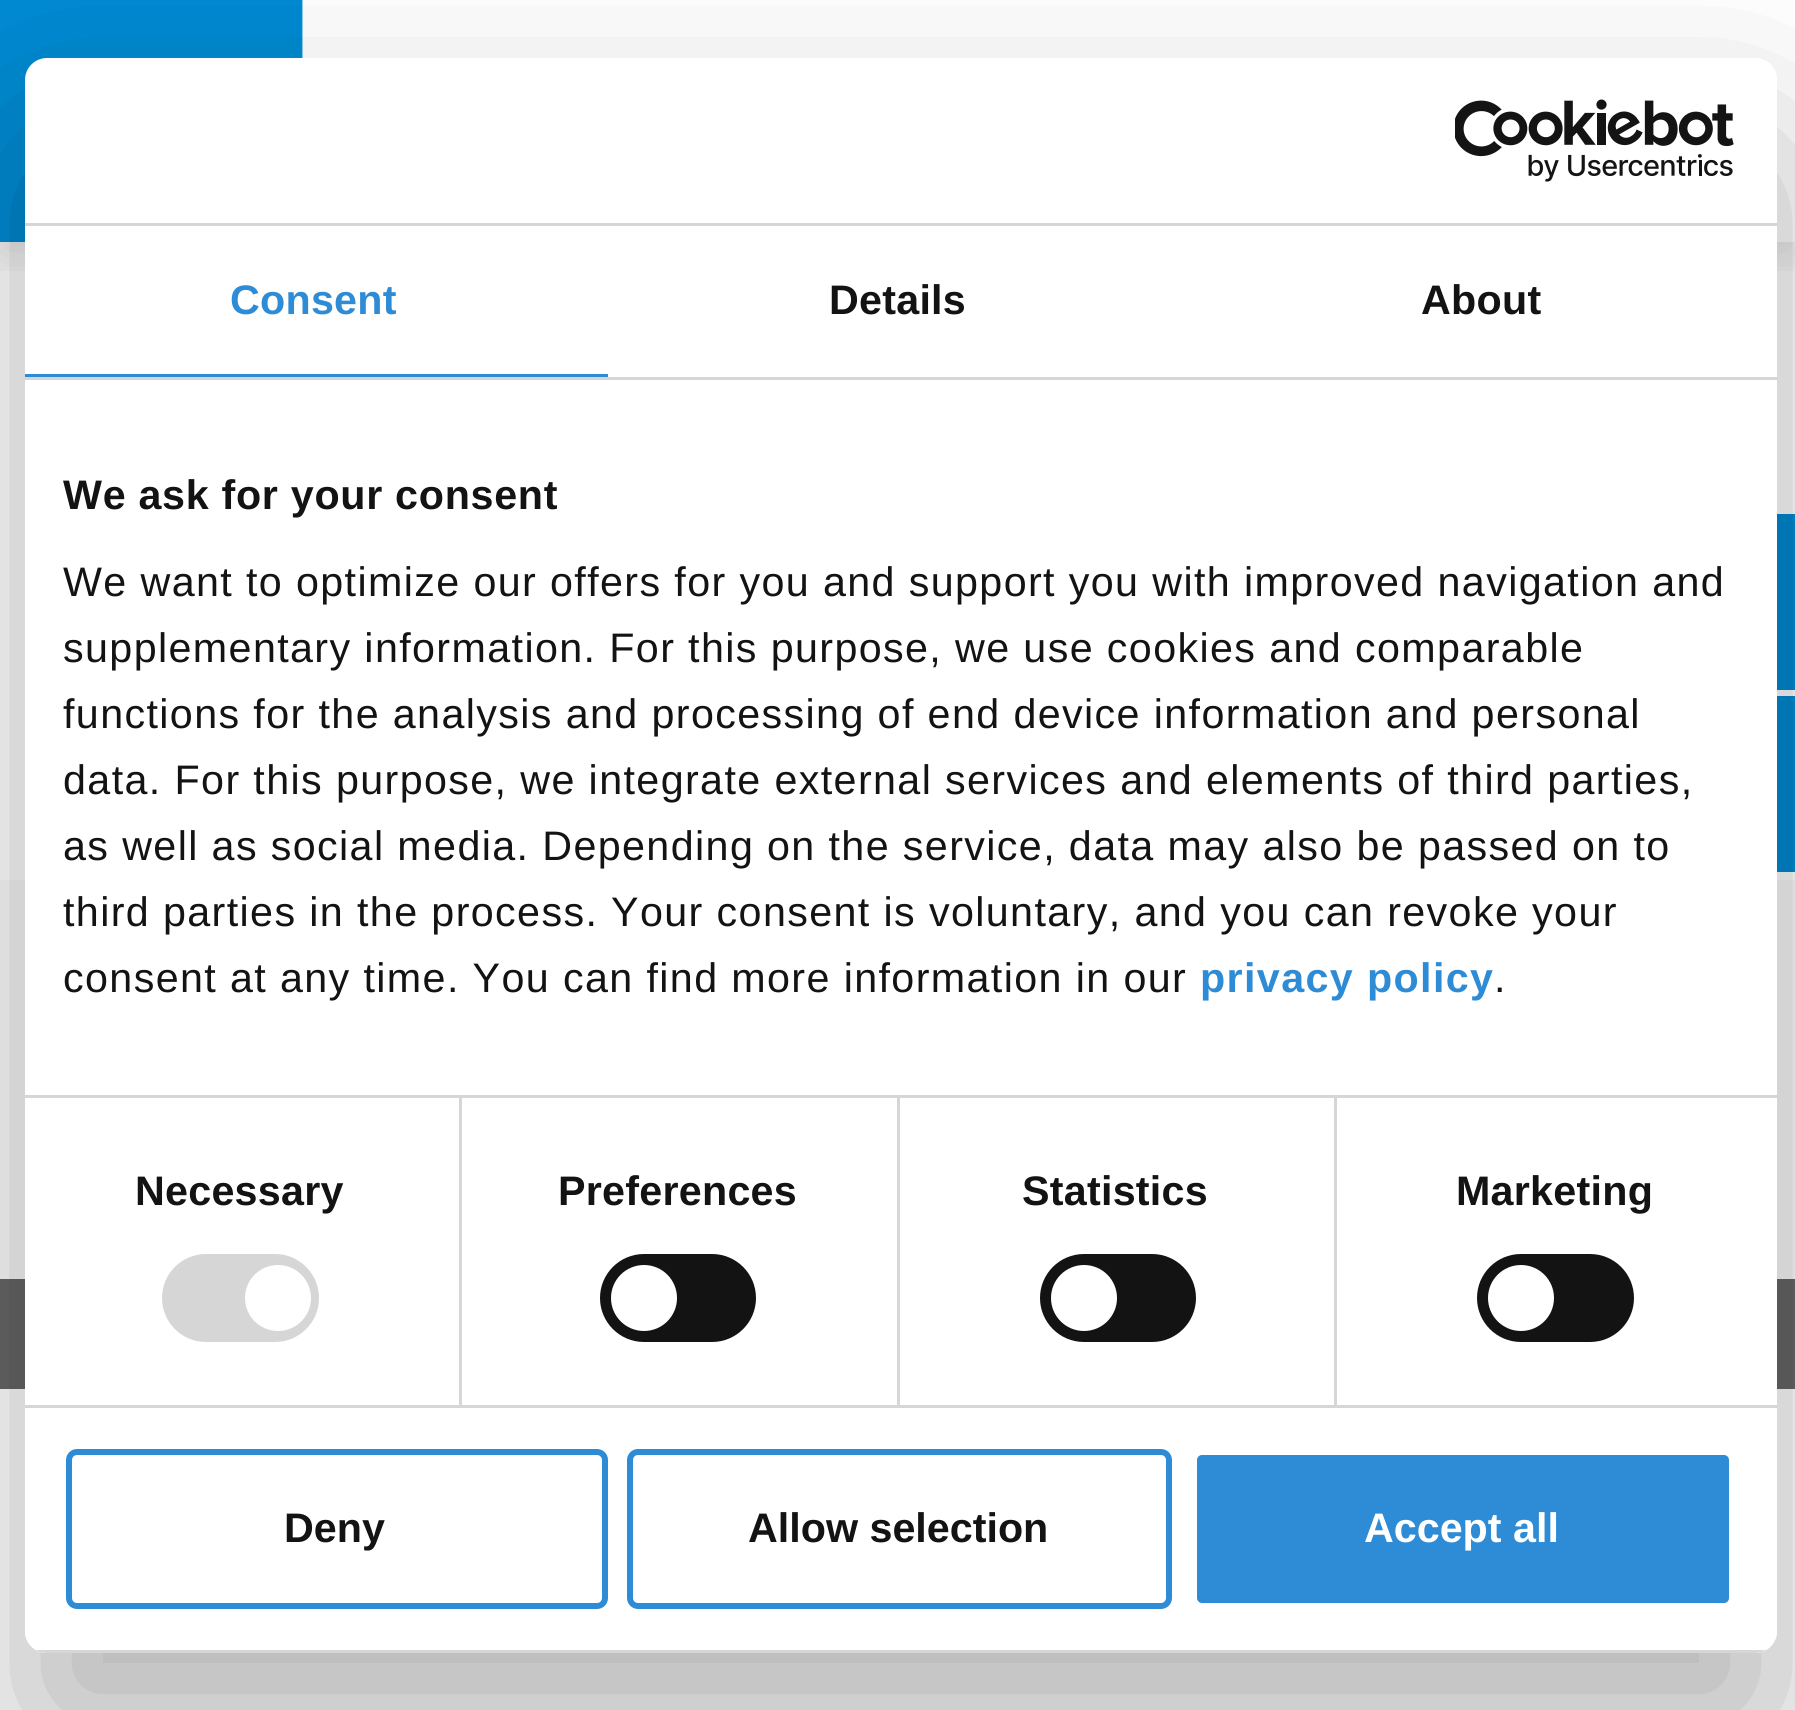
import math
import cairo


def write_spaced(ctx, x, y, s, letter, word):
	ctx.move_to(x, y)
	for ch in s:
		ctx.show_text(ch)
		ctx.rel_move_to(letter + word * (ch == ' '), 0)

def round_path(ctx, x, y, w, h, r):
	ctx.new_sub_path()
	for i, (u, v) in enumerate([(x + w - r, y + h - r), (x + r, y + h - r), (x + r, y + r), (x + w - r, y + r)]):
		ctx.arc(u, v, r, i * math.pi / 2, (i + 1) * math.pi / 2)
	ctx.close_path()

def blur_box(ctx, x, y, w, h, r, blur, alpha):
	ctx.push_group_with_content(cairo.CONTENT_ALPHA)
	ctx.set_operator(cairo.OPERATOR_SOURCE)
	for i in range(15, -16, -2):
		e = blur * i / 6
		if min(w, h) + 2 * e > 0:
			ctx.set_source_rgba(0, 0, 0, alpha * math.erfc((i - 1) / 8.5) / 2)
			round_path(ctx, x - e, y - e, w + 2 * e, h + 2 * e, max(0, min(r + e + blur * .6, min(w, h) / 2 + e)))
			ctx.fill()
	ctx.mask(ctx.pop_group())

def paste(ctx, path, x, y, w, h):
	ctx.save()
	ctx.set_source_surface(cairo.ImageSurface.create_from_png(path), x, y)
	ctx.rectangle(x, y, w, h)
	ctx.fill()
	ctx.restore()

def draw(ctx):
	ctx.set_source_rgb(1, 1, 1)
	ctx.paint()
	ctx.save()
	ctx.rectangle(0, 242, 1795, 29)
	ctx.clip()
	ctx.set_source_rgb(0, 0, 0)
	blur_box(ctx, 0, 14, 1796, 242, 0, 20.5, 0.1)
	ctx.restore()
	paste(ctx, 'media/1.png', 0, 0, 303, 242)
	ctx.set_source_rgb(0, 0.541, 0.824)
	ctx.rectangle(1777, 514, 18, 176)
	ctx.rectangle(1777, 696, 18, 176)
	ctx.fill()
	ctx.set_source_rgb(0.973, 0.973, 0.973)
	ctx.rectangle(0, 880, 1795, 399)
	ctx.fill()
	ctx.set_source_rgb(0.4, 0.4, 0.4)
	ctx.rectangle(0, 1279, 1795, 110)
	ctx.fill()
	ctx.save()
	ctx.set_fill_rule(cairo.FILL_RULE_EVEN_ODD)
	ctx.new_path()
	ctx.move_to(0, 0)
	ctx.line_to(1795, 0)
	ctx.line_to(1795, 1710)
	ctx.line_to(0, 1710)
	ctx.close_path()
	ctx.move_to(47, 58)
	ctx.line_to(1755, 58)
	ctx.curve_to(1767, 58, 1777, 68, 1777, 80)
	ctx.line_to(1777, 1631)
	ctx.curve_to(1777, 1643, 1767, 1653, 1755, 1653)
	ctx.line_to(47, 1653)
	ctx.curve_to(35, 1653, 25, 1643, 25, 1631)
	ctx.line_to(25, 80)
	ctx.curve_to(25, 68, 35, 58, 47, 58)
	ctx.close_path()
	ctx.clip()
	ctx.set_source_rgb(0, 0, 0)
	blur_box(ctx, 25, 146, 1752, 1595, 22, 93.5, 0.3)
	ctx.restore()
	ctx.set_source_rgb(1, 1, 1)
	round_path(ctx, 25, 58, 1752, 1595, 22)
	ctx.fill()
	ctx.set_source_rgb(0.839, 0.839, 0.839)
	ctx.rectangle(25, 223, 1752, 3)
	ctx.fill()
	paste(ctx, 'media/2.png', 1455, 99, 279, 83)
	ctx.rectangle(25, 377, 1752, 3)
	ctx.fill()
	ctx.set_source_rgb(0.18, 0.545, 0.835)
	ctx.rectangle(25, 374, 583, 3)
	ctx.fill()
	ctx.select_font_face('Liberation Sans', cairo.FONT_SLANT_NORMAL, cairo.FONT_WEIGHT_BOLD)
	ctx.set_font_size(41.25)
	write_spaced(ctx, 230, 314, 'Consent', 0.25, 0)
	ctx.set_source_rgb(0.078, 0.078, 0.078)
	write_spaced(ctx, 829, 314, 'Details', 0.25, 0)
	write_spaced(ctx, 1421, 314, 'About', 0.25, 0)
	ctx.set_source_rgb(0.839, 0.839, 0.839)
	ctx.rectangle(459, 1097, 3, 308)
	ctx.rectangle(897, 1097, 3, 308)
	ctx.rectangle(1334, 1097, 3, 308)
	ctx.rectangle(25, 1095, 1752, 3)
	ctx.fill()
	ctx.set_source_rgb(0.078, 0.078, 0.078)
	write_spaced(ctx, 63, 509, 'We ask for your consent', 0.7, 0)
	ctx.select_font_face('Liberation Sans')
	for x, y, s in [
		(63, 596, 'We want to optimize our offers for you and support you with improved navigation and'),
		(63, 662, 'supplementary information. For this purpose, we use cookies and comparable'),
		(63, 728, 'functions for the analysis and processing of end device information and personal'),
		(63, 794, 'data. For this purpose, we integrate external services and elements of third parties,'),
		(63, 860, 'as well as social media. Depending on the service, data may also be passed on to'),
		(63, 926, 'third parties in the process. Your consent is voluntary, and you can revoke your'),
		(63, 992, 'consent at any time. You can find more information in our'),
	]:
		write_spaced(ctx, x, y, s, 1.38, 0)
	ctx.select_font_face('Liberation Sans', cairo.FONT_SLANT_NORMAL, cairo.FONT_WEIGHT_BOLD)
	ctx.set_source_rgb(0.18, 0.545, 0.835)
	write_spaced(ctx, 1200, 992, 'privacy policy', 1.38, 0)
	ctx.select_font_face('Liberation Sans')
	ctx.set_source_rgb(0.078, 0.078, 0.078)
	write_spaced(ctx, 1494, 992, '.', 1.38, 0)
	ctx.set_source_rgb(0.839, 0.839, 0.839)
	ctx.rectangle(25, 1405, 1752, 3)
	ctx.fill()
	ctx.select_font_face('Liberation Sans', cairo.FONT_SLANT_NORMAL, cairo.FONT_WEIGHT_BOLD)
	ctx.set_source_rgb(0.078, 0.078, 0.078)
	write_spaced(ctx, 135, 1205, 'Necessary', 0.25, 0)
	ctx.set_source_rgb(0.839, 0.839, 0.839)
	round_path(ctx, 162, 1254, 157, 88, 44)
	ctx.fill()
	ctx.set_source_rgb(1, 1, 1)
	ctx.arc(278, 1298, 33, 0, 2 * math.pi)
	ctx.fill()
	ctx.set_source_rgb(0.078, 0.078, 0.078)
	write_spaced(ctx, 558, 1205, 'Preferences', 0.25, 0)
	round_path(ctx, 600, 1254, 156, 88, 44)
	ctx.fill()
	ctx.set_source_rgb(1, 1, 1)
	ctx.arc(644, 1298, 33, 0, 2 * math.pi)
	ctx.fill()
	ctx.set_source_rgb(0.078, 0.078, 0.078)
	write_spaced(ctx, 1022, 1205, 'Statistics', 0.25, 0)
	round_path(ctx, 1040, 1254, 156, 88, 44)
	ctx.fill()
	ctx.set_source_rgb(1, 1, 1)
	ctx.arc(1084, 1298, 33, 0, 2 * math.pi)
	ctx.fill()
	ctx.set_source_rgb(0.078, 0.078, 0.078)
	write_spaced(ctx, 1456, 1205, 'Marketing', 0.25, 0)
	round_path(ctx, 1477, 1254, 157, 88, 44)
	ctx.fill()
	ctx.set_source_rgb(1, 1, 1)
	ctx.arc(1521, 1298, 33, 0, 2 * math.pi)
	ctx.fill()
	ctx.save()
	round_path(ctx, 25, 58, 1752, 1595, 22)
	ctx.clip()
	ctx.set_source_rgb(0.839, 0.839, 0.839)
	ctx.rectangle(36, 1650, 1730, 3)
	ctx.fill()
	ctx.restore()
	round_path(ctx, 69, 1452, 536, 154, 8)
	ctx.set_source_rgb(0.18, 0.545, 0.835)
	ctx.set_line_width(6)
	ctx.stroke()
	ctx.set_source_rgb(0.078, 0.078, 0.078)
	ctx.move_to(284, 1542)
	ctx.show_text('Deny')
	round_path(ctx, 630, 1452, 539, 154, 8)
	ctx.set_source_rgb(0.18, 0.545, 0.835)
	ctx.stroke()
	ctx.set_source_rgb(0.078, 0.078, 0.078)
	ctx.move_to(748, 1542)
	ctx.show_text('Allow selection')
	ctx.set_source_rgb(0.18, 0.545, 0.835)
	round_path(ctx, 1194, 1452, 538, 154, 8)
	ctx.fill_preserve()
	ctx.set_source_rgb(1, 1, 1)
	ctx.stroke()
	ctx.move_to(1364, 1542)
	ctx.show_text('Accept all')


surface = cairo.ImageSurface(cairo.FORMAT_RGB24, 1795, 1710)
ctx = cairo.Context(surface)
options = cairo.FontOptions()
options.set_hint_metrics(cairo.HINT_METRICS_OFF)
options.set_hint_style(cairo.HINT_STYLE_NONE)
ctx.set_font_options(options)
ctx.set_miter_limit(4)
draw(ctx)
surface.write_to_png('image.png')
